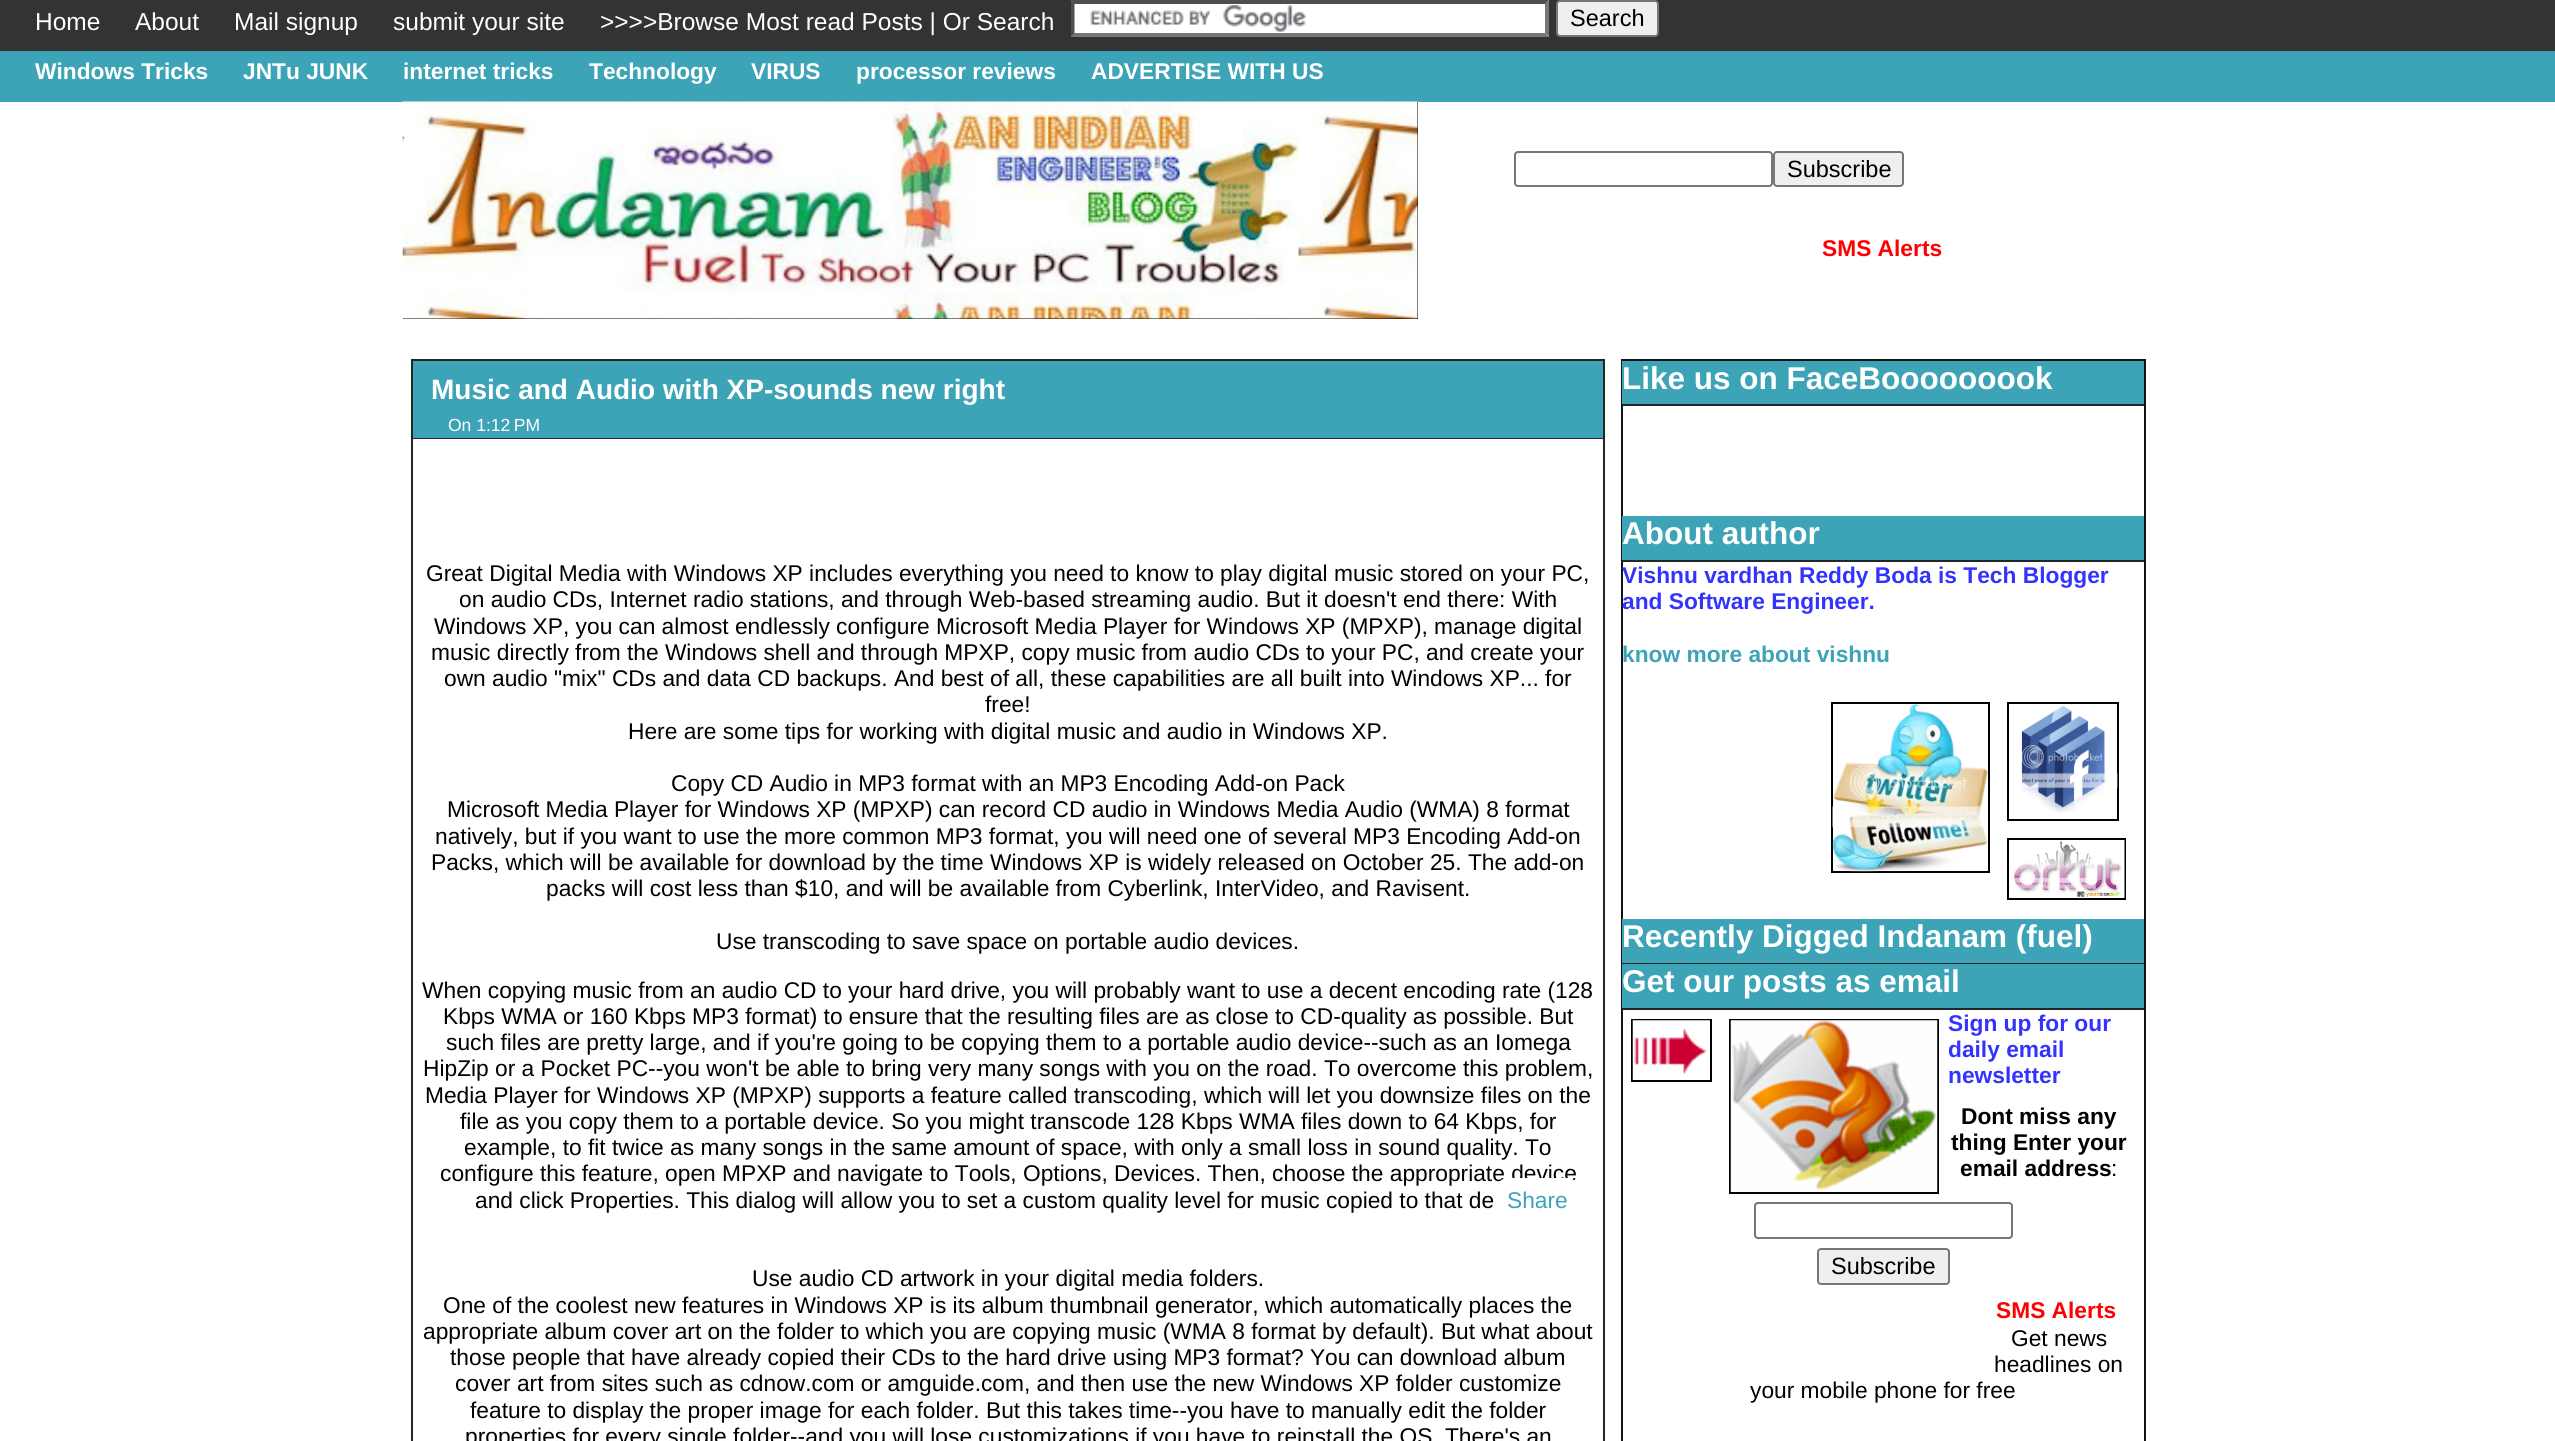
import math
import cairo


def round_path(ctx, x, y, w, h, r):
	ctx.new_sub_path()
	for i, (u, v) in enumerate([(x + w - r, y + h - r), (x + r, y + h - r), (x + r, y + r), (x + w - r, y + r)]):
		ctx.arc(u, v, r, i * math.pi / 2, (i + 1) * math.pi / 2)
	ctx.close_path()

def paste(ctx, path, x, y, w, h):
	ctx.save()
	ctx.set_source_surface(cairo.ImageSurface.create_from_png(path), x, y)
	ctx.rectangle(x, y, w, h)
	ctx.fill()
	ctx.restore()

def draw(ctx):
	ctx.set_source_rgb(1, 1, 1)
	ctx.paint()
	ctx.set_source_rgb(0.2, 0.2, 0.2)
	ctx.rectangle(0, 0, 2555, 51)
	ctx.fill()
	ctx.select_font_face('Liberation Sans')
	ctx.set_font_size(24.5)
	ctx.set_source_rgb(1, 1, 1)
	for x, y, s in [
		(35, 30, 'Home'),
		(135, 30, 'About'),
		(234, 30, 'Mail signup'),
		(393, 30, 'submit your site'),
		(600, 30, '>>>>Browse Most read Posts | Or Search'),
	]:
		ctx.move_to(x, y)
		ctx.show_text(s)
	ctx.rectangle(1071, 0, 478, 37)
	ctx.fill()
	paste(ctx, 'media/1.png', 1090, 5, 216, 27)
	ctx.set_source_rgb(0.31, 0.31, 0.31)
	ctx.new_path()
	ctx.move_to(1071, 0)
	ctx.line_to(1549, 0)
	ctx.line_to(1545, 4)
	ctx.line_to(1074, 4)
	ctx.close_path()
	ctx.fill()
	ctx.set_source_rgb(0.463, 0.463, 0.463)
	ctx.new_path()
	ctx.move_to(1549, 0)
	ctx.line_to(1549, 37)
	ctx.line_to(1545, 33)
	ctx.line_to(1545, 3.5)
	ctx.close_path()
	ctx.fill()
	ctx.new_path()
	ctx.move_to(1549, 37)
	ctx.line_to(1071, 37)
	ctx.line_to(1074, 33)
	ctx.line_to(1545, 33)
	ctx.close_path()
	ctx.fill()
	ctx.set_source_rgb(0.31, 0.31, 0.31)
	ctx.new_path()
	ctx.move_to(1071, 37)
	ctx.line_to(1071, 0)
	ctx.line_to(1074.5, 3.5)
	ctx.line_to(1074.5, 33)
	ctx.close_path()
	ctx.fill()
	ctx.set_source_rgb(0.937, 0.937, 0.937)
	round_path(ctx, 1557, 1, 101, 35, 3)
	ctx.fill_preserve()
	ctx.set_source_rgb(0.463, 0.463, 0.463)
	ctx.stroke()
	ctx.set_font_size(23.5)
	ctx.set_source_rgb(0, 0, 0)
	ctx.move_to(1570, 26)
	ctx.show_text('Search')
	ctx.set_source_rgb(0.239, 0.643, 0.718)
	ctx.rectangle(0, 51, 2555, 51)
	ctx.fill()
	ctx.select_font_face('Liberation Sans', cairo.FONT_SLANT_NORMAL, cairo.FONT_WEIGHT_BOLD)
	ctx.set_font_size(22.75)
	ctx.set_source_rgb(1, 1, 1)
	for x, y, s in [
		(35, 79, 'Windows Tricks'),
		(243, 79, 'JNTu JUNK'),
		(403, 79, 'internet tricks'),
		(589, 79, 'Technology'),
		(751, 79, 'VIRUS'),
		(856, 79, 'processor reviews'),
		(1091, 79, 'ADVERTISE WITH US'),
	]:
		ctx.move_to(x, y)
		ctx.show_text(s)
	ctx.set_source_rgb(0, 0, 0)
	ctx.rectangle(403, 102, 1015, 217)
	ctx.fill()
	paste(ctx, 'media/2.png', 402, 101, 1016, 218)
	paste(ctx, 'media/3.png', 402, 136, 3, 6)
	round_path(ctx, 1515, 152, 257, 34, 3)
	ctx.set_source_rgb(0.463, 0.463, 0.463)
	ctx.stroke()
	ctx.set_source_rgb(0.937, 0.937, 0.937)
	round_path(ctx, 1774, 152, 129, 34, 3)
	ctx.fill_preserve()
	ctx.set_source_rgb(0.463, 0.463, 0.463)
	ctx.stroke()
	ctx.select_font_face('Liberation Sans')
	ctx.set_font_size(23.5)
	ctx.set_source_rgb(0, 0, 0)
	ctx.move_to(1787, 177)
	ctx.show_text('Subscribe')
	ctx.select_font_face('Liberation Sans', cairo.FONT_SLANT_NORMAL, cairo.FONT_WEIGHT_BOLD)
	ctx.set_font_size(22.75)
	ctx.set_source_rgb(1, 0, 0)
	ctx.move_to(1822, 256)
	ctx.show_text('SMS Alerts')
	ctx.rectangle(412, 360, 1192, 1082)
	ctx.set_source_rgb(0.133, 0.149, 0.161)
	ctx.stroke()
	ctx.set_source_rgb(0.239, 0.643, 0.718)
	ctx.rectangle(413, 361, 1190, 77)
	ctx.fill()
	ctx.set_source_rgb(0.133, 0.149, 0.161)
	ctx.rectangle(413, 438, 1190, 1)
	ctx.fill()
	ctx.set_font_size(28)
	ctx.set_source_rgb(1, 1, 1)
	ctx.move_to(431, 399)
	ctx.show_text('Music and Audio with XP-sounds new right')
	ctx.select_font_face('Liberation Sans')
	ctx.set_font_size(17.5)
	ctx.move_to(448, 431)
	ctx.show_text('On 1:12 PM')
	ctx.set_font_size(22.75)
	ctx.set_source_rgb(0, 0, 0)
	for x, y, s in [
		(426, 581, 'Great Digital Media with Windows XP includes everything you need to know to play digital music stored on your PC,'),
		(459, 607, 'on audio CDs, Internet radio stations, and through Web-based streaming audio. But it doesn\'t end there: With'),
		(434, 634, 'Windows XP, you can almost endlessly configure Microsoft Media Player for Windows XP (MPXP), manage digital'),
		(431, 660, 'music directly from the Windows shell and through MPXP, copy music from audio CDs to your PC, and create your'),
		(444, 686, 'own audio "mix" CDs and data CD backups. And best of all, these capabilities are all built into Windows XP... for'),
		(985, 712, 'free!'),
		(628, 739, 'Here are some tips for working with digital music and audio in Windows XP.'),
		(671, 791, 'Copy CD Audio in MP3 format with an MP3 Encoding Add-on Pack'),
		(447, 817, 'Microsoft Media Player for Windows XP (MPXP) can record CD audio in Windows Media Audio (WMA) 8 format'),
		(435, 844, 'natively, but if you want to use the more common MP3 format, you will need one of several MP3 Encoding Add-on'),
		(431, 870, 'Packs, which will be available for download by the time Windows XP is widely released on October 25. The add-on'),
		(546, 896, 'packs will cost less than $10, and will be available from Cyberlink, InterVideo, and Ravisent.'),
		(716, 949, 'Use transcoding to save space on portable audio devices.'),
		(422, 998, 'When copying music from an audio CD to your hard drive, you will probably want to use a decent encoding rate (128'),
		(443, 1024, 'Kbps WMA or 160 Kbps MP3 format) to ensure that the resulting files are as close to CD-quality as possible. But'),
		(446, 1050, 'such files are pretty large, and if you\'re going to be copying them to a portable audio device--such as an Iomega'),
		(423, 1076, 'HipZip or a Pocket PC--you won\'t be able to bring very many songs with you on the road. To overcome this problem,'),
		(425, 1103, 'Media Player for Windows XP (MPXP) supports a feature called transcoding, which will let you downsize files on the'),
		(460, 1129, 'file as you copy them to a portable device. So you might transcode 128 Kbps WMA files down to 64 Kbps, for'),
		(464, 1155, 'example, to fit twice as many songs in the same amount of space, with only a small loss in sound quality. To'),
		(440, 1181, 'configure this feature, open MPXP and navigate to Tools, Options, Devices. Then, choose the appropriate device'),
		(475, 1208, 'and click Properties. This dialog will allow you to set a custom quality level for music copied to that de'),
		(752, 1286, 'Use audio CD artwork in your digital media folders.'),
		(443, 1313, 'One of the coolest new features in Windows XP is its album thumbnail generator, which automatically places the'),
		(423, 1339, 'appropriate album cover art on the folder to which you are copying music (WMA 8 format by default). But what about'),
		(450, 1365, 'those people that have already copied their CDs to the hard drive using MP3 format? You can download album'),
		(455, 1391, 'cover art from sites such as cdnow.com or amguide.com, and then use the new Windows XP folder customize'),
		(470, 1418, 'feature to display the proper image for each folder. But this takes time--you have to manually edit the folder'),
		(465, 1444, 'properties for every single folder--and you will lose customizations if you have to reinstall the OS. There\'s an'),
	]:
		ctx.move_to(x, y)
		ctx.show_text(s)
	ctx.rectangle(1622, 360, 523, 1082)
	ctx.set_source_rgb(0.071, 0.071, 0.094)
	ctx.stroke()
	ctx.set_source_rgb(0.239, 0.643, 0.718)
	ctx.rectangle(1622, 361, 522, 43)
	ctx.fill()
	ctx.set_source_rgb(0.133, 0.149, 0.161)
	ctx.rectangle(1622, 404, 522, 2)
	ctx.fill()
	ctx.select_font_face('Liberation Sans', cairo.FONT_SLANT_NORMAL, cairo.FONT_WEIGHT_BOLD)
	ctx.set_font_size(31.5)
	ctx.set_source_rgb(1, 1, 1)
	ctx.move_to(1622, 389)
	ctx.show_text('Like us on FaceBooooooook')
	ctx.set_source_rgb(0.239, 0.643, 0.718)
	ctx.rectangle(1622, 516, 522, 44)
	ctx.fill()
	ctx.set_source_rgb(0.133, 0.149, 0.161)
	ctx.rectangle(1622, 560, 522, 2)
	ctx.fill()
	ctx.set_source_rgb(1, 1, 1)
	ctx.move_to(1622, 544)
	ctx.show_text('About author')
	ctx.set_font_size(22.75)
	ctx.set_source_rgb(0.2, 0.2, 1)
	ctx.move_to(1622, 583)
	ctx.show_text('Vishnu vardhan Reddy Boda is Tech Blogger')
	ctx.move_to(1622, 609)
	ctx.show_text('and Software Engineer.')
	ctx.set_source_rgb(0.239, 0.643, 0.718)
	ctx.move_to(1622, 662)
	ctx.show_text('know more about vishnu')
	ctx.rectangle(1832, 703, 157, 169)
	ctx.set_source_rgb(0, 0, 0)
	ctx.stroke()
	paste(ctx, 'media/4.png', 1832, 703, 156, 169)
	ctx.rectangle(2008, 703, 110, 117)
	ctx.stroke()
	paste(ctx, 'media/5.png', 2021, 706, 97, 107)
	ctx.rectangle(2008, 839, 117, 60)
	ctx.stroke()
	paste(ctx, 'media/6.png', 2013, 840, 112, 58)
	ctx.set_source_rgb(0.239, 0.643, 0.718)
	ctx.rectangle(1622, 919, 522, 44)
	ctx.fill()
	ctx.set_source_rgb(0.133, 0.149, 0.161)
	ctx.rectangle(1622, 963, 522, 1)
	ctx.fill()
	ctx.set_font_size(31.5)
	ctx.set_source_rgb(1, 1, 1)
	ctx.move_to(1622, 947)
	ctx.show_text('Recently Digged Indanam (fuel)')
	round_path(ctx, 1498, 1178, 79, 47, 9)
	ctx.fill()
	ctx.select_font_face('Liberation Sans')
	ctx.set_font_size(22.75)
	ctx.set_source_rgb(0.239, 0.643, 0.718)
	ctx.move_to(1507, 1208)
	ctx.show_text('Share')
	ctx.rectangle(1622, 964, 522, 44)
	ctx.fill()
	ctx.set_source_rgb(0.133, 0.149, 0.161)
	ctx.rectangle(1622, 1008, 522, 2)
	ctx.fill()
	ctx.select_font_face('Liberation Sans', cairo.FONT_SLANT_NORMAL, cairo.FONT_WEIGHT_BOLD)
	ctx.set_font_size(31.5)
	ctx.set_source_rgb(1, 1, 1)
	ctx.move_to(1622, 992)
	ctx.show_text('Get our posts as email')
	ctx.rectangle(1632, 1020, 79, 61)
	ctx.set_source_rgb(0, 0, 0)
	ctx.stroke()
	paste(ctx, 'media/7.png', 1632, 1020, 78, 60)
	ctx.rectangle(1730, 1020, 208, 173)
	ctx.stroke()
	paste(ctx, 'media/8.png', 1730, 1020, 208, 172)
	ctx.set_font_size(22.75)
	ctx.set_source_rgb(0.2, 0.2, 1)
	for x, y, s in [
		(1948, 1031, 'Sign up for our'),
		(1948, 1057, 'daily email'),
		(1948, 1083, 'newsletter'),
	]:
		ctx.move_to(x, y)
		ctx.show_text(s)
	ctx.set_source_rgb(0, 0, 0)
	for x, y, s in [
		(1961, 1124, 'Dont miss any'),
		(1951, 1150, 'thing Enter your'),
		(1960, 1176, 'email address'),
	]:
		ctx.move_to(x, y)
		ctx.show_text(s)
	ctx.select_font_face('Liberation Sans')
	ctx.move_to(2111, 1176)
	ctx.show_text(':')
	round_path(ctx, 1755, 1203, 257, 35, 3)
	ctx.set_source_rgb(0.463, 0.463, 0.463)
	ctx.stroke()
	ctx.set_source_rgb(0.937, 0.937, 0.937)
	round_path(ctx, 1818, 1249, 131, 35, 3)
	ctx.fill_preserve()
	ctx.set_source_rgb(0.463, 0.463, 0.463)
	ctx.stroke()
	ctx.set_font_size(23.5)
	ctx.set_source_rgb(0, 0, 0)
	ctx.move_to(1831, 1274)
	ctx.show_text('Subscribe')
	ctx.select_font_face('Liberation Sans', cairo.FONT_SLANT_NORMAL, cairo.FONT_WEIGHT_BOLD)
	ctx.set_font_size(22.75)
	ctx.set_source_rgb(1, 0, 0)
	ctx.move_to(1996, 1318)
	ctx.show_text('SMS Alerts')
	ctx.select_font_face('Liberation Sans')
	ctx.set_source_rgb(0, 0, 0)
	for x, y, s in [
		(2011, 1346, 'Get news'),
		(1994, 1372, 'headlines on'),
		(1750, 1398, 'your mobile phone for free'),
	]:
		ctx.move_to(x, y)
		ctx.show_text(s)


surface = cairo.ImageSurface(cairo.FORMAT_RGB24, 2555, 1441)
ctx = cairo.Context(surface)
options = cairo.FontOptions()
options.set_hint_metrics(cairo.HINT_METRICS_OFF)
options.set_hint_style(cairo.HINT_STYLE_NONE)
ctx.set_font_options(options)
ctx.set_miter_limit(4)
draw(ctx)
surface.write_to_png('image.png')
